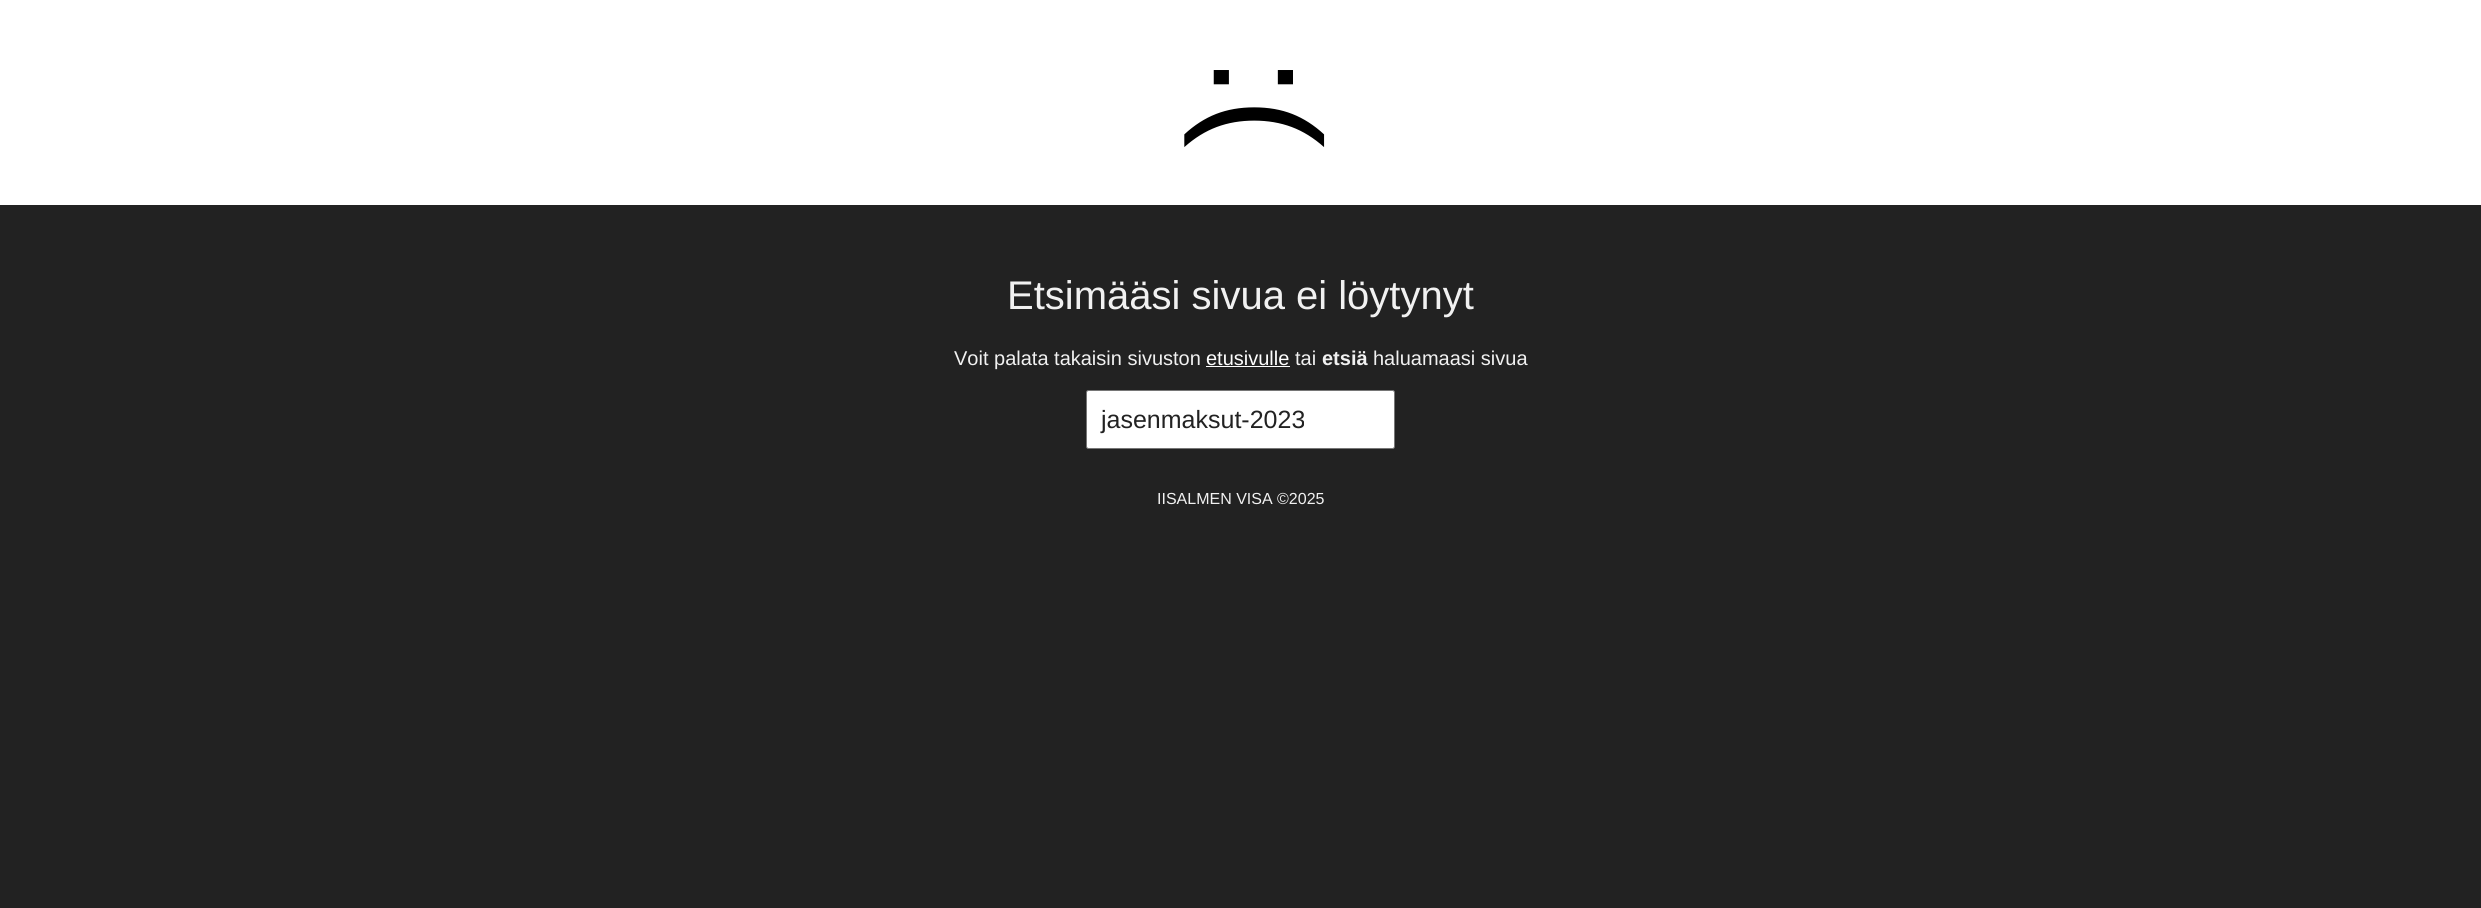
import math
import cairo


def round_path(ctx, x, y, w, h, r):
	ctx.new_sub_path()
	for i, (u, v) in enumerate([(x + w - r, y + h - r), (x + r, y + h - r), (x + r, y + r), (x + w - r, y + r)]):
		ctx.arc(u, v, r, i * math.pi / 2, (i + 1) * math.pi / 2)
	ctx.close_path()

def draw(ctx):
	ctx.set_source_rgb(0.133, 0.133, 0.133)
	ctx.paint()
	ctx.set_source_rgb(1, 1, 1)
	ctx.rectangle(0, 0, 2481, 205)
	ctx.fill()
	ctx.select_font_face('Liberation Sans')
	ctx.set_font_size(150)
	ctx.set_source_rgb(0, 0, 0)
	ctx.save()
	ctx.translate(1293, 148)
	ctx.rotate(-90 * math.pi / 180)
	ctx.move_to(0, 0)
	ctx.show_text('):')
	ctx.restore()
	ctx.set_font_size(40)
	ctx.set_source_rgb(0.945, 0.945, 0.945)
	ctx.move_to(1007, 309)
	ctx.show_text('Etsimääsi sivua ei löytynyt')
	ctx.set_font_size(20)
	ctx.move_to(954, 365)
	ctx.show_text('Voit palata takaisin sivuston')
	ctx.set_source_rgb(1, 1, 1)
	ctx.move_to(1206, 365)
	ctx.show_text('etusivulle')
	ctx.rectangle(1206, 366, 84, 1)
	ctx.fill()
	ctx.set_source_rgb(0.945, 0.945, 0.945)
	ctx.move_to(1295, 365)
	ctx.show_text('tai')
	ctx.select_font_face('Liberation Sans', cairo.FONT_SLANT_NORMAL, cairo.FONT_WEIGHT_BOLD)
	ctx.move_to(1322, 365)
	ctx.show_text('etsiä')
	ctx.select_font_face('Liberation Sans')
	ctx.move_to(1373, 365)
	ctx.show_text('haluamaasi sivua')
	ctx.set_source_rgb(1, 1, 1)
	round_path(ctx, 1086.5, 390.5, 308, 58, 2)
	ctx.fill_preserve()
	ctx.set_source_rgb(0.463, 0.463, 0.463)
	ctx.set_line_width(1)
	ctx.stroke()
	ctx.set_font_size(25)
	ctx.set_source_rgb(0.133, 0.133, 0.133)
	ctx.move_to(1101, 428)
	ctx.show_text('jasenmaksut-2023')
	ctx.set_font_size(16)
	ctx.set_source_rgb(0.945, 0.945, 0.945)
	ctx.move_to(1157, 504)
	ctx.show_text('IISALMEN VISA ©2025')


surface = cairo.ImageSurface(cairo.FORMAT_RGB24, 2481, 908)
ctx = cairo.Context(surface)
options = cairo.FontOptions()
options.set_hint_metrics(cairo.HINT_METRICS_OFF)
options.set_hint_style(cairo.HINT_STYLE_NONE)
ctx.set_font_options(options)
ctx.set_miter_limit(4)
draw(ctx)
surface.write_to_png('image.png')
